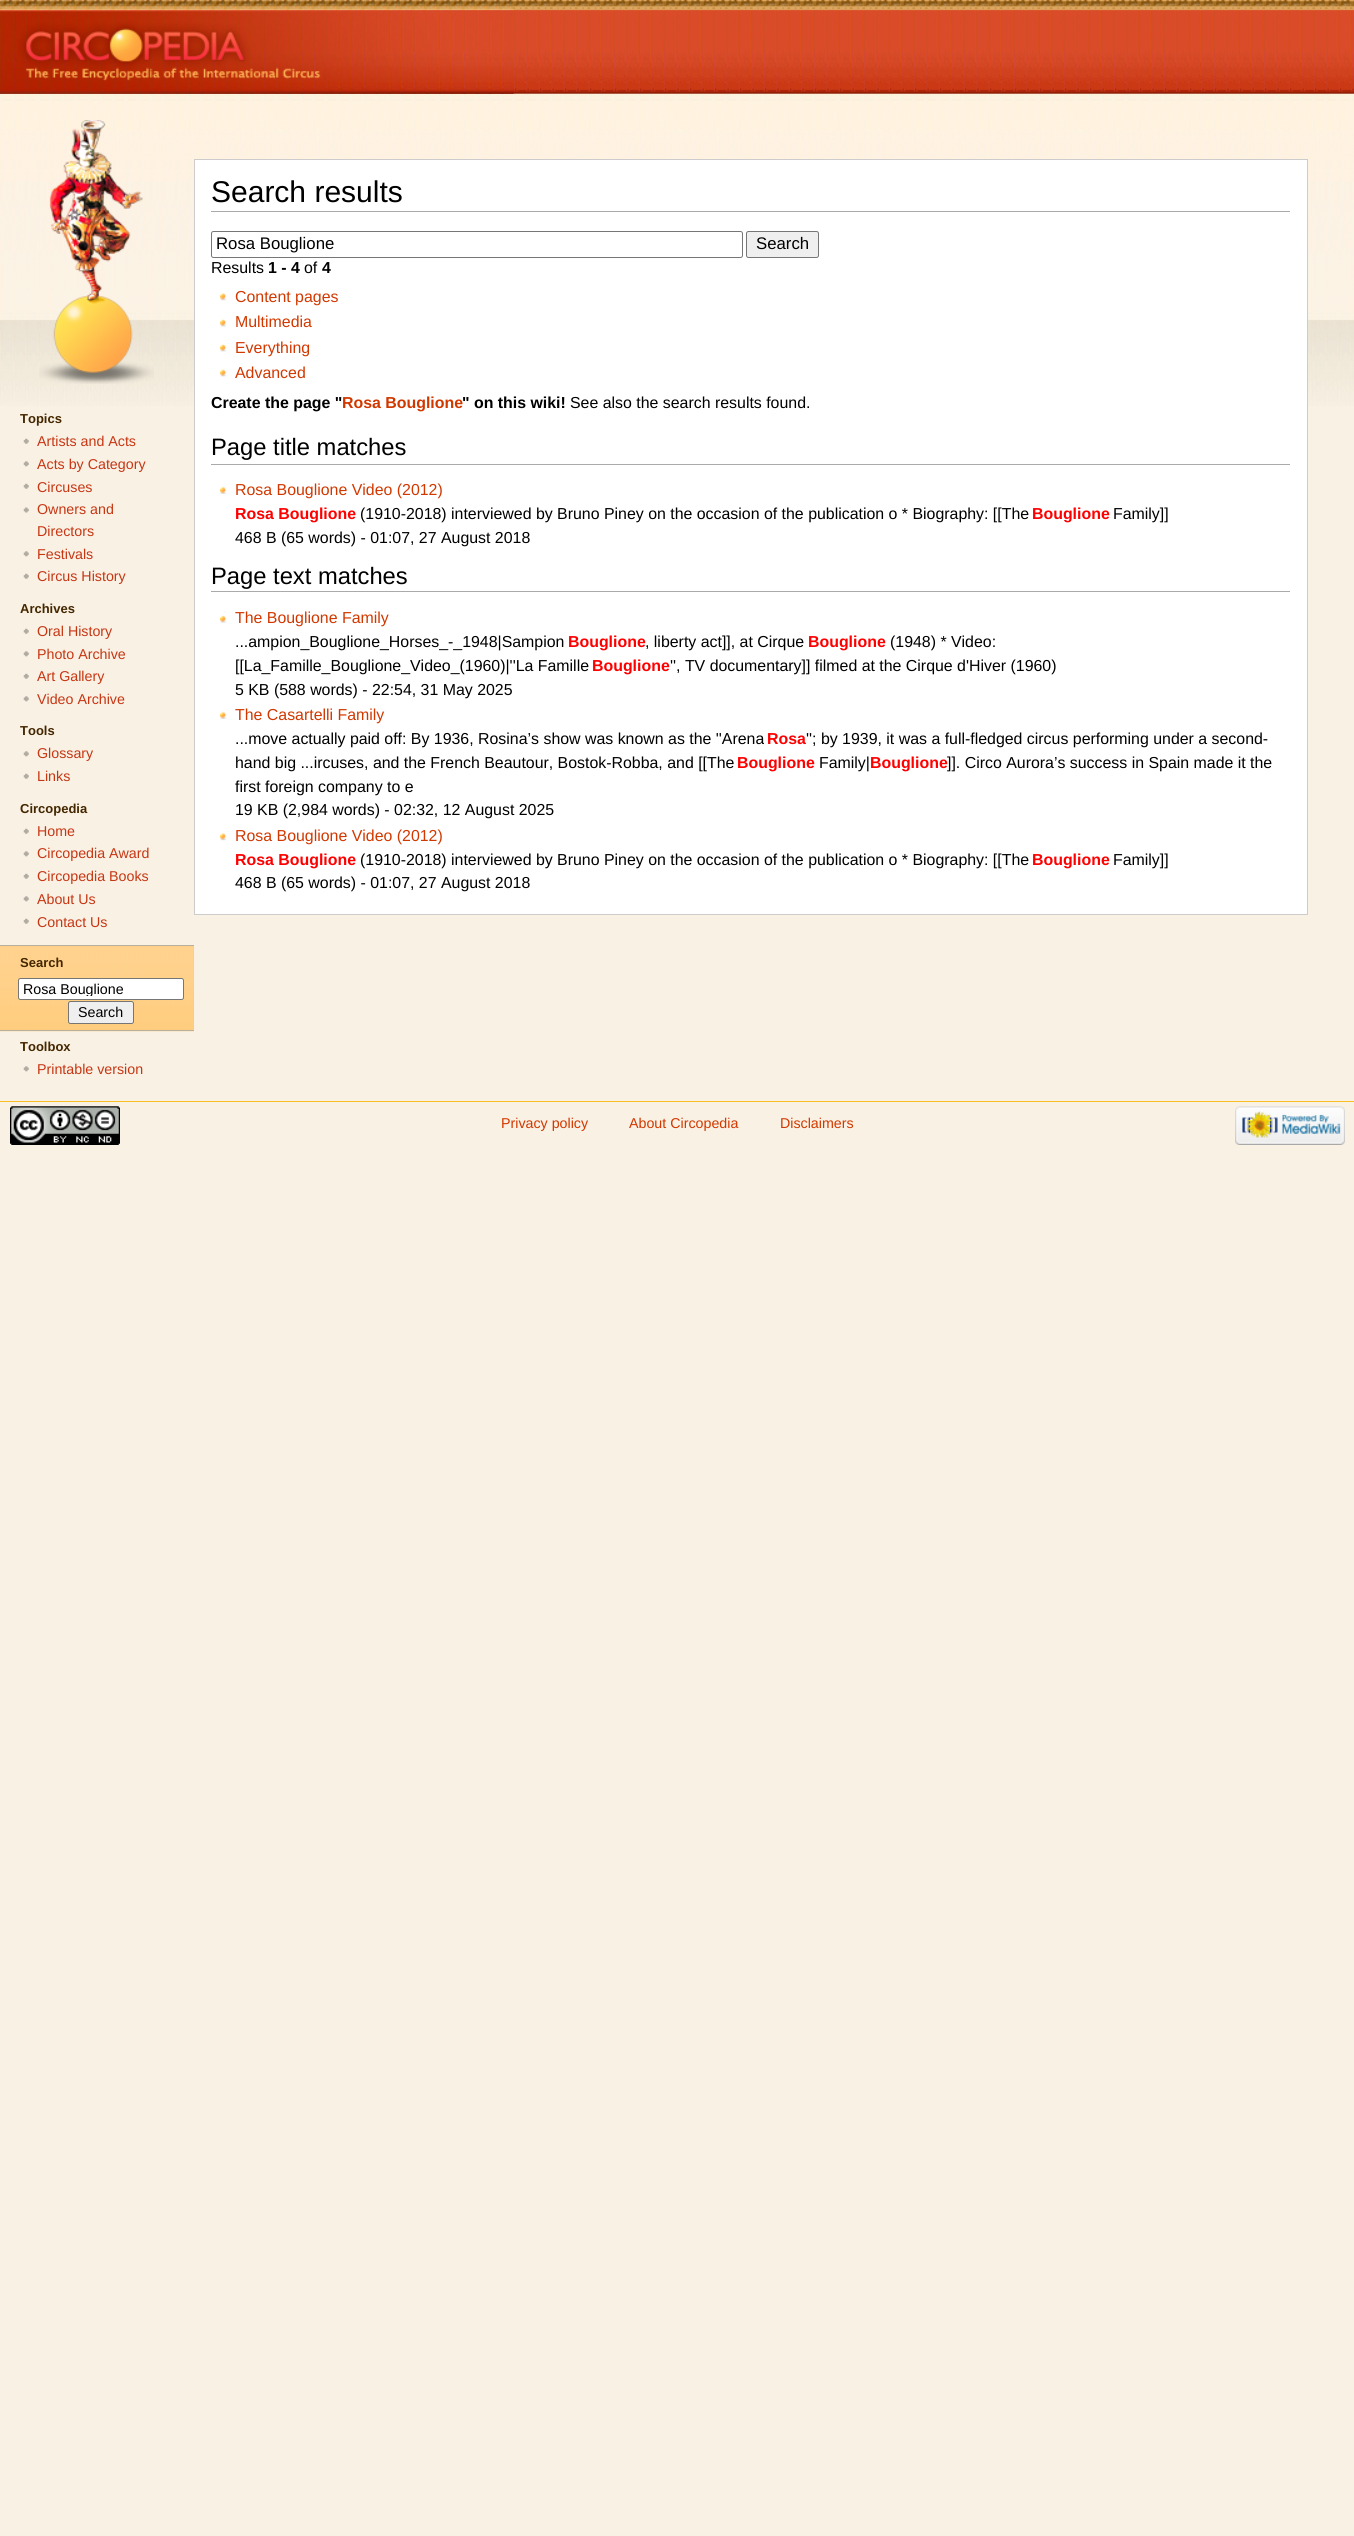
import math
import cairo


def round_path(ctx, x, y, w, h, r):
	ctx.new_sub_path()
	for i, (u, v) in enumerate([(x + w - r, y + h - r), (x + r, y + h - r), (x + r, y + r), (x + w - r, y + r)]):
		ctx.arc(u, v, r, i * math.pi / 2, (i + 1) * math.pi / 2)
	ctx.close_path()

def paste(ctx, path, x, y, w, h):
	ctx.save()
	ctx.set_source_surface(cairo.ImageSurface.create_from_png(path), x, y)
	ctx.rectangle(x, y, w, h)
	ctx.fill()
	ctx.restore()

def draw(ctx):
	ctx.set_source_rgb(0.976, 0.945, 0.894)
	ctx.paint()
	paste(ctx, 'media/1.png', 0, 0, 1354, 406)
	paste(ctx, 'media/2.png', 0, 0, 514, 94)
	paste(ctx, 'media/3.png', 39, 120, 115, 264)
	ctx.select_font_face('Liberation Sans', cairo.FONT_SLANT_NORMAL, cairo.FONT_WEIGHT_BOLD)
	ctx.set_font_size(13)
	ctx.set_source_rgb(0.267, 0.153, 0)
	ctx.move_to(20, 423)
	ctx.show_text('Topics')
	paste(ctx, 'media/4.png', 23, 438, 6, 6)
	ctx.select_font_face('Liberation Sans')
	ctx.set_font_size(14.25)
	ctx.set_source_rgb(0.776, 0.212, 0.078)
	ctx.move_to(37, 446)
	ctx.show_text('Artists and Acts')
	paste(ctx, 'media/5.png', 23, 461, 6, 6)
	ctx.move_to(37, 469)
	ctx.show_text('Acts by Category')
	paste(ctx, 'media/4.png', 23, 483, 6, 6)
	ctx.move_to(37, 492)
	ctx.show_text('Circuses')
	paste(ctx, 'media/6.png', 23, 507, 6, 6)
	ctx.move_to(37, 514)
	ctx.show_text('Owners and')
	ctx.move_to(37, 536)
	ctx.show_text('Directors')
	paste(ctx, 'media/5.png', 23, 551, 6, 6)
	ctx.move_to(37, 559)
	ctx.show_text('Festivals')
	paste(ctx, 'media/4.png', 23, 573, 6, 6)
	ctx.move_to(37, 581)
	ctx.show_text('Circus History')
	ctx.select_font_face('Liberation Sans', cairo.FONT_SLANT_NORMAL, cairo.FONT_WEIGHT_BOLD)
	ctx.set_font_size(13)
	ctx.set_source_rgb(0.267, 0.153, 0)
	ctx.move_to(20, 613)
	ctx.show_text('Archives')
	paste(ctx, 'media/4.png', 23, 628, 6, 6)
	ctx.select_font_face('Liberation Sans')
	ctx.set_font_size(14.25)
	ctx.set_source_rgb(0.776, 0.212, 0.078)
	ctx.move_to(37, 636)
	ctx.show_text('Oral History')
	paste(ctx, 'media/5.png', 23, 651, 6, 6)
	ctx.move_to(37, 659)
	ctx.show_text('Photo Archive')
	paste(ctx, 'media/4.png', 23, 673, 6, 6)
	ctx.move_to(37, 681)
	ctx.show_text('Art Gallery')
	paste(ctx, 'media/5.png', 23, 696, 6, 6)
	ctx.move_to(37, 704)
	ctx.show_text('Video Archive')
	ctx.select_font_face('Liberation Sans', cairo.FONT_SLANT_NORMAL, cairo.FONT_WEIGHT_BOLD)
	ctx.set_font_size(13)
	ctx.set_source_rgb(0.267, 0.153, 0)
	ctx.move_to(20, 735)
	ctx.show_text('Tools')
	paste(ctx, 'media/5.png', 23, 751, 6, 6)
	ctx.select_font_face('Liberation Sans')
	ctx.set_font_size(14.25)
	ctx.set_source_rgb(0.776, 0.212, 0.078)
	ctx.move_to(37, 758)
	ctx.show_text('Glossary')
	paste(ctx, 'media/4.png', 23, 773, 6, 6)
	ctx.move_to(37, 781)
	ctx.show_text('Links')
	ctx.select_font_face('Liberation Sans', cairo.FONT_SLANT_NORMAL, cairo.FONT_WEIGHT_BOLD)
	ctx.set_font_size(13)
	ctx.set_source_rgb(0.267, 0.153, 0)
	ctx.move_to(20, 813)
	ctx.show_text('Circopedia')
	paste(ctx, 'media/4.png', 23, 828, 6, 6)
	ctx.select_font_face('Liberation Sans')
	ctx.set_font_size(14.25)
	ctx.set_source_rgb(0.776, 0.212, 0.078)
	ctx.move_to(37, 836)
	ctx.show_text('Home')
	paste(ctx, 'media/5.png', 23, 851, 6, 6)
	ctx.move_to(37, 858)
	ctx.show_text('Circopedia Award')
	paste(ctx, 'media/4.png', 23, 873, 6, 6)
	ctx.move_to(37, 881)
	ctx.show_text('Circopedia Books')
	paste(ctx, 'media/5.png', 23, 896, 6, 6)
	ctx.move_to(37, 904)
	ctx.show_text('About Us')
	paste(ctx, 'media/4.png', 23, 918, 6, 6)
	ctx.move_to(37, 927)
	ctx.show_text('Contact Us')
	ctx.set_source_rgb(1, 0.769, 0.424)
	ctx.rectangle(0, 946, 194, 84)
	ctx.fill()
	paste(ctx, 'media/7.png', 0, 946, 194, 86)
	ctx.set_source_rgb(0.722, 0.694, 0.624)
	ctx.rectangle(0, 945, 194, 1)
	ctx.fill()
	ctx.rectangle(0, 1030, 194, 1)
	ctx.fill()
	ctx.select_font_face('Liberation Sans', cairo.FONT_SLANT_NORMAL, cairo.FONT_WEIGHT_BOLD)
	ctx.set_font_size(13)
	ctx.set_source_rgb(0.267, 0.153, 0)
	ctx.move_to(20, 967)
	ctx.show_text('Search')
	ctx.set_source_rgb(1, 1, 1)
	round_path(ctx, 18.5, 978.5, 165, 21, 2)
	ctx.fill_preserve()
	ctx.set_source_rgb(0.463, 0.463, 0.463)
	ctx.set_line_width(1)
	ctx.stroke()
	ctx.save()
	ctx.rectangle(23, 981, 156, 15)
	ctx.clip()
	ctx.select_font_face('Liberation Sans')
	ctx.set_font_size(14.25)
	ctx.set_source_rgb(0, 0, 0)
	ctx.move_to(23, 994)
	ctx.show_text('Rosa Bouglione')
	ctx.restore()
	ctx.set_source_rgb(0.937, 0.937, 0.937)
	round_path(ctx, 68.5, 1001.5, 65, 22, 2)
	ctx.fill_preserve()
	ctx.set_source_rgb(0.463, 0.463, 0.463)
	ctx.stroke()
	ctx.select_font_face('Liberation Sans')
	ctx.set_font_size(14.25)
	ctx.set_source_rgb(0, 0, 0)
	ctx.move_to(78, 1017)
	ctx.show_text('Search')
	ctx.select_font_face('Liberation Sans', cairo.FONT_SLANT_NORMAL, cairo.FONT_WEIGHT_BOLD)
	ctx.set_font_size(13)
	ctx.set_source_rgb(0.267, 0.153, 0)
	ctx.move_to(20, 1051)
	ctx.show_text('Toolbox')
	paste(ctx, 'media/5.png', 23, 1066, 6, 6)
	ctx.select_font_face('Liberation Sans')
	ctx.set_font_size(14.25)
	ctx.set_source_rgb(0.776, 0.212, 0.078)
	ctx.move_to(37, 1074)
	ctx.show_text('Printable version')
	ctx.set_source_rgb(1, 1, 1)
	ctx.rectangle(194.5, 159.5, 1113, 755)
	ctx.fill_preserve()
	ctx.set_source_rgb(0.8, 0.8, 0.8)
	ctx.stroke()
	ctx.set_source_rgb(0.667, 0.667, 0.667)
	ctx.rectangle(211, 211, 1079, 1)
	ctx.fill()
	ctx.set_font_size(30)
	ctx.set_source_rgb(0, 0, 0)
	ctx.move_to(211, 202)
	ctx.show_text('Search results')
	round_path(ctx, 211.5, 231.5, 531, 26, 2)
	ctx.set_source_rgb(0.463, 0.463, 0.463)
	ctx.stroke()
	ctx.set_font_size(16.75)
	ctx.set_source_rgb(0, 0, 0)
	ctx.move_to(216, 249)
	ctx.show_text('Rosa Bouglione')
	ctx.set_source_rgb(0.937, 0.937, 0.937)
	round_path(ctx, 746.5, 231.5, 72, 26, 2)
	ctx.fill_preserve()
	ctx.set_source_rgb(0.463, 0.463, 0.463)
	ctx.stroke()
	ctx.set_source_rgb(0, 0, 0)
	ctx.move_to(756, 249)
	ctx.show_text('Search')
	ctx.set_font_size(15.9)
	ctx.move_to(211, 273)
	ctx.show_text('Results')
	ctx.select_font_face('Liberation Sans', cairo.FONT_SLANT_NORMAL, cairo.FONT_WEIGHT_BOLD)
	ctx.move_to(268, 273)
	ctx.show_text('1 - 4')
	ctx.select_font_face('Liberation Sans')
	ctx.move_to(304, 273)
	ctx.show_text('of')
	ctx.select_font_face('Liberation Sans', cairo.FONT_SLANT_NORMAL, cairo.FONT_WEIGHT_BOLD)
	ctx.move_to(322, 273)
	ctx.show_text('4')
	paste(ctx, 'media/8.png', 220, 292, 7, 9)
	ctx.select_font_face('Liberation Sans')
	ctx.set_source_rgb(0.82, 0.22, 0)
	ctx.move_to(235, 302)
	ctx.show_text('Content pages')
	paste(ctx, 'media/9.png', 220, 318, 7, 9)
	ctx.move_to(235, 327)
	ctx.show_text('Multimedia')
	paste(ctx, 'media/9.png', 220, 343, 7, 9)
	ctx.move_to(235, 353)
	ctx.show_text('Everything')
	paste(ctx, 'media/9.png', 220, 368, 7, 9)
	ctx.move_to(235, 378)
	ctx.show_text('Advanced')
	ctx.select_font_face('Liberation Sans', cairo.FONT_SLANT_NORMAL, cairo.FONT_WEIGHT_BOLD)
	ctx.set_source_rgb(0, 0, 0)
	ctx.move_to(211, 408)
	ctx.show_text('Create the page "')
	ctx.set_source_rgb(0.82, 0.22, 0)
	ctx.move_to(342, 408)
	ctx.show_text('Rosa Bouglione')
	ctx.set_source_rgb(0, 0, 0)
	ctx.move_to(462, 408)
	ctx.show_text('" on this wiki!')
	ctx.select_font_face('Liberation Sans')
	ctx.move_to(570, 408)
	ctx.show_text('See also the search results found.')
	ctx.set_source_rgb(0.667, 0.667, 0.667)
	ctx.rectangle(211, 464, 1079, 1)
	ctx.fill()
	ctx.set_font_size(23.75)
	ctx.set_source_rgb(0, 0, 0)
	ctx.move_to(211, 455)
	ctx.show_text('Page title matches')
	paste(ctx, 'media/10.png', 220, 486, 7, 8)
	ctx.set_font_size(15.9)
	ctx.set_source_rgb(0.82, 0.22, 0)
	ctx.move_to(235, 495)
	ctx.show_text('Rosa Bouglione Video (2012)')
	ctx.select_font_face('Liberation Sans', cairo.FONT_SLANT_NORMAL, cairo.FONT_WEIGHT_BOLD)
	ctx.set_source_rgb(1, 0, 0)
	ctx.move_to(235, 519)
	ctx.show_text('Rosa Bouglione')
	ctx.select_font_face('Liberation Sans')
	ctx.set_source_rgb(0, 0, 0)
	ctx.move_to(360, 519)
	ctx.show_text('(1910-2018) interviewed by Bruno Piney on the occasion of the publication o * Biography: [[The')
	ctx.select_font_face('Liberation Sans', cairo.FONT_SLANT_NORMAL, cairo.FONT_WEIGHT_BOLD)
	ctx.set_source_rgb(1, 0, 0)
	ctx.move_to(1032, 519)
	ctx.show_text('Bouglione')
	ctx.select_font_face('Liberation Sans')
	ctx.set_source_rgb(0, 0, 0)
	ctx.move_to(1113, 519)
	ctx.show_text('Family]]')
	ctx.move_to(235, 543)
	ctx.show_text('468 B (65 words) - 01:07, 27 August 2018')
	ctx.set_source_rgb(0.667, 0.667, 0.667)
	ctx.rectangle(211, 591, 1079, 1)
	ctx.fill()
	ctx.set_font_size(23.75)
	ctx.set_source_rgb(0, 0, 0)
	ctx.move_to(211, 584)
	ctx.show_text('Page text matches')
	paste(ctx, 'media/11.png', 220, 615, 7, 8)
	ctx.set_font_size(15.9)
	ctx.set_source_rgb(0.82, 0.22, 0)
	ctx.move_to(235, 623)
	ctx.show_text('The Bouglione Family')
	ctx.set_source_rgb(0, 0, 0)
	ctx.move_to(235, 647)
	ctx.show_text('...ampion_Bouglione_Horses_-_1948|Sampion')
	ctx.select_font_face('Liberation Sans', cairo.FONT_SLANT_NORMAL, cairo.FONT_WEIGHT_BOLD)
	ctx.set_source_rgb(1, 0, 0)
	ctx.move_to(568, 647)
	ctx.show_text('Bouglione')
	ctx.select_font_face('Liberation Sans')
	ctx.set_source_rgb(0, 0, 0)
	ctx.move_to(645, 647)
	ctx.show_text(', liberty act]], at Cirque')
	ctx.select_font_face('Liberation Sans', cairo.FONT_SLANT_NORMAL, cairo.FONT_WEIGHT_BOLD)
	ctx.set_source_rgb(1, 0, 0)
	ctx.move_to(808, 647)
	ctx.show_text('Bouglione')
	ctx.select_font_face('Liberation Sans')
	ctx.set_source_rgb(0, 0, 0)
	ctx.move_to(890, 647)
	ctx.show_text('(1948) * Video:')
	ctx.move_to(235, 671)
	ctx.show_text('[[La_Famille_Bouglione_Video_(1960)|\'\'La Famille')
	ctx.select_font_face('Liberation Sans', cairo.FONT_SLANT_NORMAL, cairo.FONT_WEIGHT_BOLD)
	ctx.set_source_rgb(1, 0, 0)
	ctx.move_to(592, 671)
	ctx.show_text('Bouglione')
	ctx.select_font_face('Liberation Sans')
	ctx.set_source_rgb(0, 0, 0)
	ctx.move_to(670, 671)
	ctx.show_text('\'\', TV documentary]] filmed at the Cirque d\'Hiver (1960)')
	ctx.move_to(235, 695)
	ctx.show_text('5 KB (588 words) - 22:54, 31 May 2025')
	paste(ctx, 'media/10.png', 220, 711, 7, 8)
	ctx.set_source_rgb(0.82, 0.22, 0)
	ctx.move_to(235, 720)
	ctx.show_text('The Casartelli Family')
	ctx.set_source_rgb(0, 0, 0)
	ctx.move_to(235, 744)
	ctx.show_text('...move actually paid off: By 1936, Rosina’s show was known as the \'\'Arena')
	ctx.select_font_face('Liberation Sans', cairo.FONT_SLANT_NORMAL, cairo.FONT_WEIGHT_BOLD)
	ctx.set_source_rgb(1, 0, 0)
	ctx.move_to(767, 744)
	ctx.show_text('Rosa')
	ctx.select_font_face('Liberation Sans')
	ctx.set_source_rgb(0, 0, 0)
	ctx.move_to(806, 744)
	ctx.show_text('\'\'; by 1939, it was a full-fledged circus performing under a second-')
	ctx.move_to(235, 768)
	ctx.show_text('hand big ...ircuses, and the French Beautour, Bostok-Robba, and [[The')
	ctx.select_font_face('Liberation Sans', cairo.FONT_SLANT_NORMAL, cairo.FONT_WEIGHT_BOLD)
	ctx.set_source_rgb(1, 0, 0)
	ctx.move_to(737, 768)
	ctx.show_text('Bouglione')
	ctx.select_font_face('Liberation Sans')
	ctx.set_source_rgb(0, 0, 0)
	ctx.move_to(819, 768)
	ctx.show_text('Family|')
	ctx.select_font_face('Liberation Sans', cairo.FONT_SLANT_NORMAL, cairo.FONT_WEIGHT_BOLD)
	ctx.set_source_rgb(1, 0, 0)
	ctx.move_to(870, 768)
	ctx.show_text('Bouglione')
	ctx.select_font_face('Liberation Sans')
	ctx.set_source_rgb(0, 0, 0)
	for x, y, s in [
		(947, 768, ']]. Circo Aurora’s success in Spain made it the'),
		(235, 792, 'first foreign company to e'),
		(235, 815, '19 KB (2,984 words) - 02:32, 12 August 2025'),
	]:
		ctx.move_to(x, y)
		ctx.show_text(s)
	paste(ctx, 'media/12.png', 220, 832, 7, 9)
	ctx.set_source_rgb(0.82, 0.22, 0)
	ctx.move_to(235, 841)
	ctx.show_text('Rosa Bouglione Video (2012)')
	ctx.select_font_face('Liberation Sans', cairo.FONT_SLANT_NORMAL, cairo.FONT_WEIGHT_BOLD)
	ctx.set_source_rgb(1, 0, 0)
	ctx.move_to(235, 865)
	ctx.show_text('Rosa Bouglione')
	ctx.select_font_face('Liberation Sans')
	ctx.set_source_rgb(0, 0, 0)
	ctx.move_to(360, 865)
	ctx.show_text('(1910-2018) interviewed by Bruno Piney on the occasion of the publication o * Biography: [[The')
	ctx.select_font_face('Liberation Sans', cairo.FONT_SLANT_NORMAL, cairo.FONT_WEIGHT_BOLD)
	ctx.set_source_rgb(1, 0, 0)
	ctx.move_to(1032, 865)
	ctx.show_text('Bouglione')
	ctx.select_font_face('Liberation Sans')
	ctx.set_source_rgb(0, 0, 0)
	ctx.move_to(1113, 865)
	ctx.show_text('Family]]')
	ctx.move_to(235, 888)
	ctx.show_text('468 B (65 words) - 01:07, 27 August 2018')
	ctx.set_source_rgb(0.98, 0.741, 0.137)
	ctx.rectangle(0, 1101, 1354, 1)
	ctx.fill()
	paste(ctx, 'media/13.png', 10, 1106, 110, 39)
	ctx.set_font_size(14.25)
	ctx.set_source_rgb(0.82, 0.22, 0)
	for x, y, s in [
		(501, 1128, 'Privacy policy'),
		(629, 1128, 'About Circopedia'),
		(780, 1128, 'Disclaimers'),
	]:
		ctx.move_to(x, y)
		ctx.show_text(s)
	paste(ctx, 'media/14.png', 1235, 1106, 110, 39)


surface = cairo.ImageSurface(cairo.FORMAT_RGB24, 1354, 2536)
ctx = cairo.Context(surface)
options = cairo.FontOptions()
options.set_hint_metrics(cairo.HINT_METRICS_OFF)
options.set_hint_style(cairo.HINT_STYLE_NONE)
ctx.set_font_options(options)
ctx.set_miter_limit(4)
draw(ctx)
surface.write_to_png('image.png')
